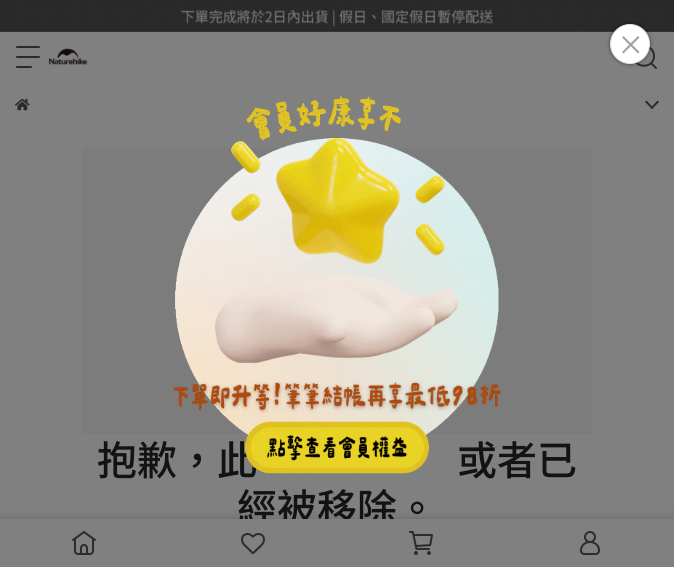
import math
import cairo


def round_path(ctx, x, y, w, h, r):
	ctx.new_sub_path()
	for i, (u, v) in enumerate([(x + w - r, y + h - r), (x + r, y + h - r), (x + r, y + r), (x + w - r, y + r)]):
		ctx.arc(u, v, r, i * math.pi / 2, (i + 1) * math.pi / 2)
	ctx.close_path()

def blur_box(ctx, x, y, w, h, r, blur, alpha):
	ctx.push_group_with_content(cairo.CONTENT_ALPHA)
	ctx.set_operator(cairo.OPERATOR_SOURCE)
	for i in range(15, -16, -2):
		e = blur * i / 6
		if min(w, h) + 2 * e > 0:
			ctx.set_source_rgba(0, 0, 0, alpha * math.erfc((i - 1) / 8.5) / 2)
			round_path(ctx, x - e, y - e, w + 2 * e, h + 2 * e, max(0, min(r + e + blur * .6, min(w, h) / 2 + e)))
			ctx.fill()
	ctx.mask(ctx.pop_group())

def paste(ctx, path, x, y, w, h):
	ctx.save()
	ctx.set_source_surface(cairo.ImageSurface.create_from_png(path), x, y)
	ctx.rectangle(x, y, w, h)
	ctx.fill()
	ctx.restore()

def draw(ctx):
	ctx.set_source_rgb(0.502, 0.502, 0.502)
	ctx.paint()
	paste(ctx, 'media/1.png', 0, 0, 674, 32)
	paste(ctx, 'media/2.png', 16, 46, 24, 22)
	paste(ctx, 'media/3.png', 48, 48, 40, 17)
	ctx.new_path()
	ctx.move_to(654, 56)
	ctx.curve_to(654, 69, 634, 69, 634, 56)
	ctx.curve_to(634, 43, 654, 43, 654, 56)
	ctx.close_path()
	ctx.move_to(652, 64)
	ctx.line_to(656, 68)
	ctx.set_source_rgb(0.173, 0.173, 0.173)
	ctx.set_line_cap(cairo.LINE_CAP_ROUND)
	ctx.set_line_join(cairo.LINE_JOIN_ROUND)
	ctx.stroke()
	ctx.set_source_rgb(0, 0, 0)
	blur_box(ctx, 0, 519, 674, 48, 0, 5, 0.2)
	ctx.select_font_face('Noto Sans TC Medium')
	ctx.set_font_size(40)
	ctx.set_source_rgb(0.067, 0.075, 0.082)
	ctx.move_to(237, 523)
	ctx.show_text('經被移除。')
	ctx.set_source_rgb(0.502, 0.502, 0.502)
	ctx.rectangle(0, 519, 674, 48)
	ctx.fill()
	paste(ctx, 'media/4.png', 72, 531, 24, 24)
	paste(ctx, 'media/5.png', 241, 533, 24, 21)
	paste(ctx, 'media/6.png', 409, 531, 24, 24)
	paste(ctx, 'media/7.png', 580, 531, 20, 24)
	ctx.set_source_rgb(0, 0, 0)
	blur_box(ctx, 610, 24, 40, 40, 20, 2, 0.5)
	ctx.set_source_rgb(1, 1, 1)
	ctx.arc(630, 44, 19.5, 0, 2 * math.pi)
	ctx.fill_preserve()
	ctx.set_source_rgb(0.886, 0.886, 0.886)
	ctx.set_line_width(1)
	ctx.set_line_cap(cairo.LINE_CAP_BUTT)
	ctx.set_line_join(cairo.LINE_JOIN_MITER)
	ctx.stroke()
	ctx.set_source_rgb(0.639, 0.639, 0.639)
	ctx.new_path()
	ctx.move_to(623.5, 36)
	ctx.line_to(639.5, 52)
	ctx.line_to(638, 53.5)
	ctx.line_to(622, 37.5)
	ctx.close_path()
	ctx.fill()
	ctx.new_path()
	ctx.move_to(622, 52)
	ctx.line_to(638, 36)
	ctx.line_to(639.5, 37.5)
	ctx.line_to(623.5, 53.5)
	ctx.close_path()
	ctx.fill()
	paste(ctx, 'media/10.png', 82, 148, 510, 286)
	ctx.set_source_rgb(0.067, 0.075, 0.082)
	ctx.move_to(97, 475)
	ctx.show_text('抱歉，此')
	ctx.move_to(457, 475)
	ctx.show_text('或者已')
	paste(ctx, 'media/8.png', 173, 96, 328, 378)
	paste(ctx, 'media/9.png', 15, 98, 15, 13)
	ctx.set_source_rgb(0.169, 0.165, 0.165)
	ctx.new_path()
	ctx.move_to(650.5, 108)
	ctx.line_to(657.5, 100.5)
	ctx.line_to(659, 102)
	ctx.line_to(652, 109)
	ctx.close_path()
	ctx.fill()
	ctx.new_path()
	ctx.move_to(645, 102)
	ctx.line_to(646.5, 100.5)
	ctx.line_to(653.5, 108)
	ctx.line_to(652, 109)
	ctx.close_path()
	ctx.fill()


surface = cairo.ImageSurface(cairo.FORMAT_RGB24, 674, 567)
ctx = cairo.Context(surface)
options = cairo.FontOptions()
options.set_hint_metrics(cairo.HINT_METRICS_OFF)
options.set_hint_style(cairo.HINT_STYLE_NONE)
ctx.set_font_options(options)
ctx.set_miter_limit(4)
draw(ctx)
surface.write_to_png('image.png')
